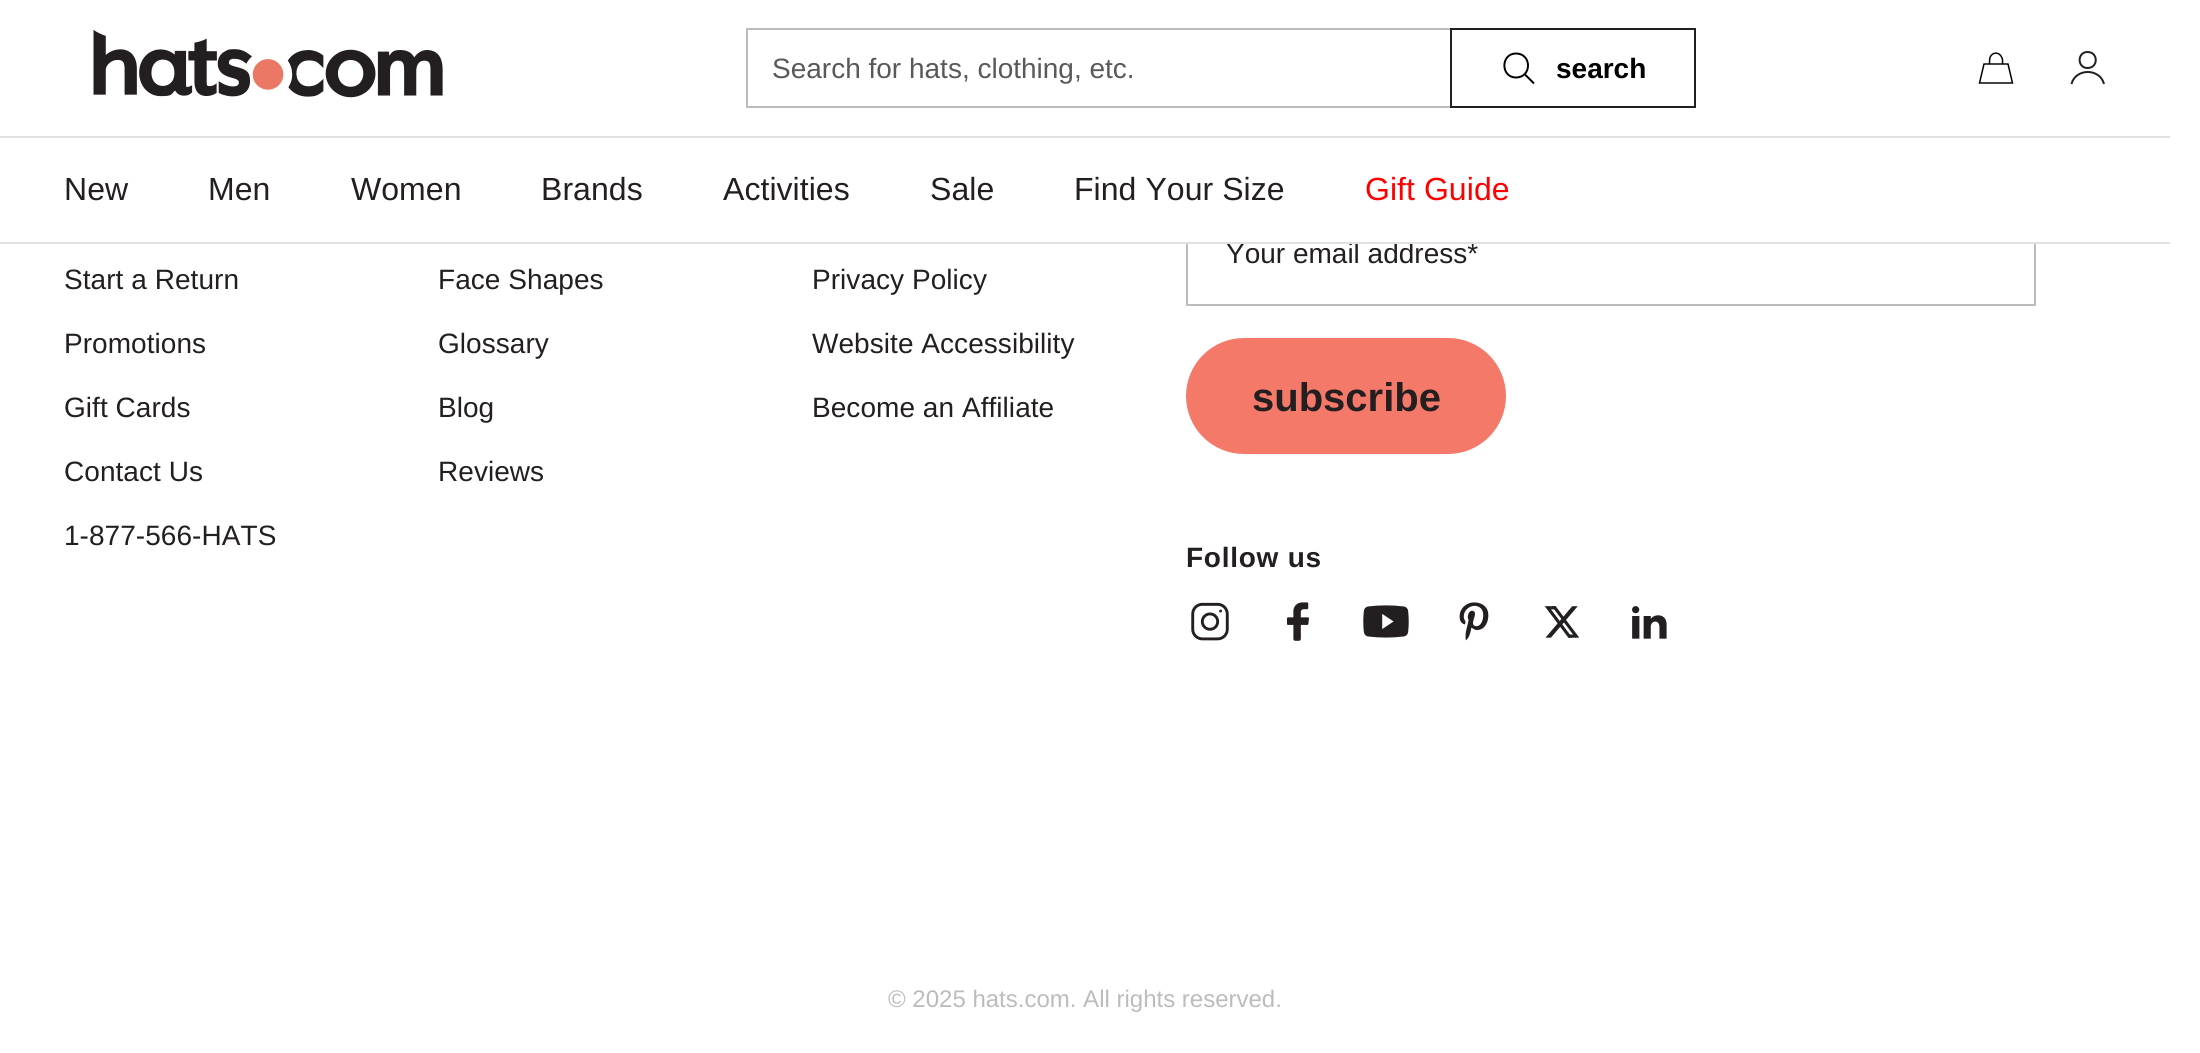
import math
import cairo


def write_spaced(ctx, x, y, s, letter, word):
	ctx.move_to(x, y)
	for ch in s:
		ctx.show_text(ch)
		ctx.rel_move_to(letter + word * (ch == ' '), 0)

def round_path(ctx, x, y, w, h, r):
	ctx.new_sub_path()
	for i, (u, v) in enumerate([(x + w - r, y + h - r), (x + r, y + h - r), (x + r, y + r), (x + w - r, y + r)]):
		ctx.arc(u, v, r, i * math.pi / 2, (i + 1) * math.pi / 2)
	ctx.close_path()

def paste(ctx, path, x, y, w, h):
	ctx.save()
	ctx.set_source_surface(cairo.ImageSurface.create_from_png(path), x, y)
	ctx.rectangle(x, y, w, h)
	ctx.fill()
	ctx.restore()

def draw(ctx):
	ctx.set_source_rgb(1, 1, 1)
	ctx.paint()
	ctx.rectangle(1187, 199, 848, 106)
	ctx.set_source_rgb(0.737, 0.737, 0.737)
	ctx.stroke()
	ctx.set_source_rgb(1, 1, 1)
	ctx.rectangle(1186, 198, 850, 44)
	ctx.fill()
	paste(ctx, 'media/1.png', 93, 30, 350, 68)
	ctx.rectangle(747, 29, 948, 78)
	ctx.set_source_rgb(0.737, 0.737, 0.737)
	ctx.stroke()
	ctx.select_font_face('Liberation Sans')
	ctx.set_font_size(28)
	ctx.set_source_rgb(0.349, 0.349, 0.357)
	ctx.move_to(772, 78)
	ctx.show_text('Search for hats, clothing, etc.')
	ctx.rectangle(1451, 29, 244, 78)
	ctx.set_source_rgb(0.137, 0.122, 0.125)
	ctx.stroke()
	ctx.new_path()
	ctx.move_to(1516, 77.5)
	ctx.curve_to(1532, 77.5, 1532, 53.5, 1516, 53.5)
	ctx.curve_to(1500.5, 53.5, 1500.5, 77.5, 1516, 77.5)
	ctx.close_path()
	ctx.move_to(1534, 83.5)
	ctx.line_to(1525, 74.5)
	ctx.set_source_rgb(0, 0, 0)
	ctx.stroke()
	ctx.select_font_face('Liberation Sans', cairo.FONT_SLANT_NORMAL, cairo.FONT_WEIGHT_BOLD)
	ctx.move_to(1556, 78)
	ctx.show_text('search')
	ctx.new_path()
	ctx.move_to(2002.5, 64)
	ctx.curve_to(2002.5, 62, 2003, 59, 2001.5, 57)
	ctx.curve_to(1999, 51.5, 1992, 52, 1990, 57.5)
	ctx.curve_to(1989.5, 59.5, 1989.5, 62, 1989.5, 64)
	ctx.move_to(1979.5, 83)
	ctx.line_to(1984, 64)
	ctx.line_to(2008, 64)
	ctx.line_to(2012.5, 83)
	ctx.close_path()
	ctx.set_line_width(1.5)
	ctx.stroke()
	ctx.new_path()
	ctx.move_to(2087.5, 68)
	ctx.curve_to(2098.5, 68, 2098.5, 52, 2087.5, 52)
	ctx.curve_to(2077, 52, 2077, 68, 2087.5, 68)
	ctx.close_path()
	ctx.move_to(2071.5, 84)
	ctx.curve_to(2075.5, 68, 2100, 68, 2104, 84)
	ctx.set_source_rgb(0.137, 0.122, 0.125)
	ctx.set_line_width(2)
	ctx.stroke()
	ctx.set_source_rgb(0.882, 0.882, 0.882)
	ctx.rectangle(0, 136, 2170, 2)
	ctx.fill()
	ctx.select_font_face('Liberation Sans')
	ctx.set_source_rgb(0.137, 0.122, 0.125)
	ctx.move_to(1226, 263)
	ctx.show_text('Your email address*')
	ctx.set_source_rgb(0.882, 0.882, 0.882)
	ctx.rectangle(0, 242, 2170, 2)
	ctx.fill()
	ctx.set_font_size(32)
	ctx.set_source_rgb(0.137, 0.122, 0.125)
	for x, y, s in [
		(64, 200, 'New'),
		(208, 200, 'Men'),
		(351, 200, 'Women'),
		(541, 200, 'Brands'),
		(723, 200, 'Activities'),
		(930, 200, 'Sale'),
		(1074, 200, 'Find Your Size'),
	]:
		write_spaced(ctx, x, y, s, 0.05, 0)
	ctx.set_source_rgb(1, 0, 0)
	write_spaced(ctx, 1365, 200, 'Gift Guide', 0.05, 0)
	ctx.set_font_size(28)
	ctx.set_source_rgb(0.137, 0.122, 0.125)
	for x, y, s in [
		(64, 289, 'Start a Return'),
		(64, 353, 'Promotions'),
		(64, 417, 'Gift Cards'),
		(64, 481, 'Contact Us'),
		(64, 545, '1-877-566-HATS'),
		(438, 289, 'Face Shapes'),
		(438, 353, 'Glossary'),
		(438, 417, 'Blog'),
		(438, 481, 'Reviews'),
		(812, 289, 'Privacy Policy'),
		(812, 353, 'Website Accessibility'),
		(812, 417, 'Become an Affiliate'),
	]:
		write_spaced(ctx, x, y, s, 0.05, 0)
	ctx.set_source_rgb(0.957, 0.475, 0.412)
	round_path(ctx, 1188, 340, 316, 112, 56)
	ctx.fill_preserve()
	ctx.set_line_width(4)
	ctx.stroke()
	ctx.select_font_face('Liberation Sans', cairo.FONT_SLANT_NORMAL, cairo.FONT_WEIGHT_BOLD)
	ctx.set_font_size(40)
	ctx.set_source_rgb(0.137, 0.122, 0.125)
	ctx.move_to(1252, 411)
	ctx.show_text('subscribe')
	ctx.set_font_size(28)
	write_spaced(ctx, 1186, 567, 'Follow us', 0.75, 0)
	paste(ctx, 'media/2.png', 1191, 602, 38, 39)
	paste(ctx, 'media/3.png', 1287, 602, 22, 39)
	paste(ctx, 'media/4.png', 1363, 605, 46, 33)
	paste(ctx, 'media/5.png', 1459, 602, 30, 39)
	paste(ctx, 'media/6.png', 1544, 606, 36, 32)
	paste(ctx, 'media/7.png', 1632, 606, 35, 33)
	ctx.select_font_face('Liberation Sans')
	ctx.set_font_size(24)
	ctx.set_source_rgb(0.737, 0.737, 0.737)
	ctx.move_to(888, 1007)
	ctx.show_text('© 2025 hats.com. All rights reserved.')


surface = cairo.ImageSurface(cairo.FORMAT_RGB24, 2200, 1053)
ctx = cairo.Context(surface)
options = cairo.FontOptions()
options.set_hint_metrics(cairo.HINT_METRICS_OFF)
options.set_hint_style(cairo.HINT_STYLE_NONE)
ctx.set_font_options(options)
ctx.set_miter_limit(4)
draw(ctx)
surface.write_to_png('image.png')
